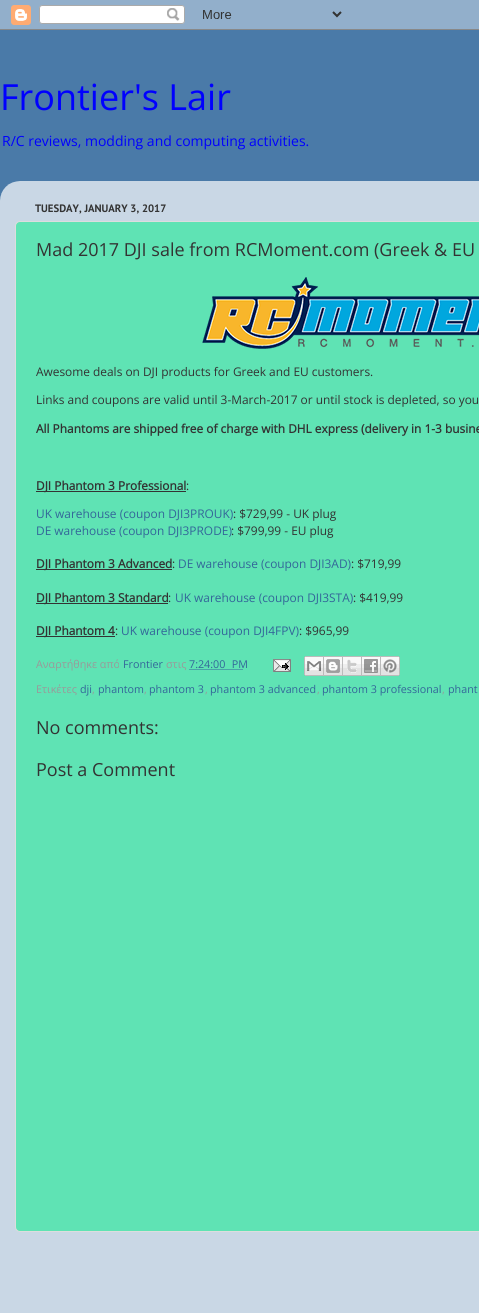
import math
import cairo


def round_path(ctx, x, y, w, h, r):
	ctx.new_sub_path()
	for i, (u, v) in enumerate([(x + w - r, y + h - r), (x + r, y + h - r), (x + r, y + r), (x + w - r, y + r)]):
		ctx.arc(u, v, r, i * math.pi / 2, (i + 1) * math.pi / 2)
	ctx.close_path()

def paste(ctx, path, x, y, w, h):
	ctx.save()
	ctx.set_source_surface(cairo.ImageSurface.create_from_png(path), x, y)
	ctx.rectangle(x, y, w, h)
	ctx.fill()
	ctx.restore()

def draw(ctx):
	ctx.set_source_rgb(0.29, 0.478, 0.659)
	ctx.paint()
	paste(ctx, 'media/1.png', 0, 0, 479, 30)
	ctx.select_font_face('Open Sans')
	ctx.set_font_size(36)
	ctx.set_source_rgb(0, 0, 1)
	ctx.move_to(0, 110)
	ctx.show_text('Frontier\'s Lair')
	ctx.set_font_size(14)
	ctx.move_to(2, 146)
	ctx.show_text('R/C reviews, modding and computing activities.')
	paste(ctx, 'media/2.png', 0, 181, 479, 1132)
	ctx.select_font_face('PT Sans', cairo.FONT_SLANT_NORMAL, cairo.FONT_WEIGHT_BOLD)
	ctx.set_font_size(10.75)
	ctx.set_source_rgb(0.2, 0.2, 0.2)
	ctx.move_to(35, 212)
	ctx.show_text('TUESDAY, JANUARY 3, 2017')
	ctx.set_source_rgb(0.373, 0.89, 0.706)
	round_path(ctx, 15.5, 221.5, 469, 1010, 4.5)
	ctx.fill_preserve()
	ctx.set_source_rgb(0.867, 0.867, 0.867)
	ctx.set_line_width(1)
	ctx.stroke()
	ctx.select_font_face('Open Sans')
	ctx.set_font_size(18)
	ctx.set_source_rgb(0.2, 0.2, 0.2)
	ctx.move_to(36, 256)
	ctx.show_text('Mad 2017 DJI sale from RCMoment.com (Greek & EU')
	paste(ctx, 'media/3.png', 202, 277, 277, 72)
	ctx.set_font_size(11.9)
	ctx.move_to(36, 376)
	ctx.show_text('Awesome deals on DJI products for Greek and EU customers.')
	ctx.move_to(36, 404)
	ctx.show_text('Links and coupons are valid until 3-March-2017 or until stock is depleted, so you')
	ctx.select_font_face('Open Sans', cairo.FONT_SLANT_NORMAL, cairo.FONT_WEIGHT_BOLD)
	ctx.move_to(36, 433)
	ctx.show_text('All Phantoms are shipped free of charge with DHL express (delivery in 1-3 busine')
	ctx.rectangle(36, 491, 150, 1)
	ctx.fill()
	ctx.move_to(36, 490)
	ctx.show_text('DJI Phantom 3 Professional')
	ctx.select_font_face('Open Sans')
	ctx.move_to(186, 490)
	ctx.show_text(':')
	ctx.set_source_rgb(0.2, 0.4, 0.6)
	ctx.move_to(36, 518)
	ctx.show_text('UK warehouse (coupon DJI3PROUK)')
	ctx.set_source_rgb(0.2, 0.2, 0.2)
	ctx.move_to(233, 518)
	ctx.show_text(': $729,99 - UK plug')
	ctx.set_source_rgb(0.2, 0.4, 0.6)
	ctx.move_to(36, 535)
	ctx.show_text('DE warehouse (coupon DJI3PRODE)')
	ctx.set_source_rgb(0.2, 0.2, 0.2)
	ctx.move_to(231, 535)
	ctx.show_text(': $799,99 - EU plug')
	ctx.rectangle(36, 569, 136, 1)
	ctx.fill()
	ctx.select_font_face('Open Sans', cairo.FONT_SLANT_NORMAL, cairo.FONT_WEIGHT_BOLD)
	ctx.move_to(36, 568)
	ctx.show_text('DJI Phantom 3 Advanced')
	ctx.select_font_face('Open Sans')
	ctx.move_to(172, 568)
	ctx.show_text(':')
	ctx.set_source_rgb(0.2, 0.4, 0.6)
	ctx.move_to(178, 568)
	ctx.show_text('DE warehouse (coupon DJI3AD)')
	ctx.set_source_rgb(0.2, 0.2, 0.2)
	ctx.move_to(351, 568)
	ctx.show_text(': $719,99')
	ctx.rectangle(36, 603, 132, 1)
	ctx.fill()
	ctx.select_font_face('Open Sans', cairo.FONT_SLANT_NORMAL, cairo.FONT_WEIGHT_BOLD)
	ctx.move_to(36, 602)
	ctx.show_text('DJI Phantom 3 Standard')
	ctx.select_font_face('Open Sans')
	ctx.move_to(168, 602)
	ctx.show_text(':')
	ctx.set_source_rgb(0.2, 0.4, 0.6)
	ctx.move_to(175, 602)
	ctx.show_text('UK warehouse (coupon DJI3STA)')
	ctx.set_source_rgb(0.2, 0.2, 0.2)
	ctx.move_to(353, 602)
	ctx.show_text(': $419,99')
	ctx.rectangle(36, 636, 79, 1)
	ctx.fill()
	ctx.select_font_face('Open Sans', cairo.FONT_SLANT_NORMAL, cairo.FONT_WEIGHT_BOLD)
	ctx.move_to(36, 635)
	ctx.show_text('DJI Phantom 4')
	ctx.select_font_face('Open Sans')
	ctx.move_to(115, 635)
	ctx.show_text(':')
	ctx.set_source_rgb(0.2, 0.4, 0.6)
	ctx.move_to(121, 635)
	ctx.show_text('UK warehouse (coupon DJI4FPV)')
	ctx.set_source_rgb(0.2, 0.2, 0.2)
	ctx.move_to(299, 635)
	ctx.show_text(': $965,99')
	ctx.set_font_size(10.75)
	ctx.set_source_rgb(0.6, 0.6, 0.6)
	ctx.move_to(36, 668)
	ctx.show_text('Αναρτήθηκε από')
	ctx.set_source_rgb(0.2, 0.4, 0.6)
	ctx.move_to(123, 668)
	ctx.show_text('Frontier')
	ctx.set_source_rgb(0.6, 0.6, 0.6)
	ctx.move_to(166, 668)
	ctx.show_text('στις')
	ctx.new_path()
	ctx.move_to(189.5, 669.5)
	ctx.line_to(243.5, 669.5)
	ctx.set_source_rgb(0.2, 0.4, 0.6)
	ctx.set_dash([1, 1])
	ctx.stroke()
	ctx.move_to(189, 668)
	ctx.show_text('7:24:00 PM')
	paste(ctx, 'media/4.png', 273, 659, 18, 13)
	paste(ctx, 'media/5.png', 304, 656, 20, 20)
	paste(ctx, 'media/6.png', 324, 656, 19, 20)
	paste(ctx, 'media/7.png', 343, 656, 19, 20)
	paste(ctx, 'media/8.png', 362, 656, 19, 20)
	paste(ctx, 'media/9.png', 381, 656, 19, 20)
	ctx.set_source_rgb(0.6, 0.6, 0.6)
	ctx.move_to(36, 693)
	ctx.show_text('Ετικέτες')
	ctx.set_source_rgb(0.2, 0.4, 0.6)
	ctx.move_to(80, 693)
	ctx.show_text('dji')
	ctx.set_source_rgb(0.6, 0.6, 0.6)
	ctx.move_to(92, 693)
	ctx.show_text(',')
	ctx.set_source_rgb(0.2, 0.4, 0.6)
	ctx.move_to(98, 693)
	ctx.show_text('phantom')
	ctx.set_source_rgb(0.6, 0.6, 0.6)
	ctx.move_to(144, 693)
	ctx.show_text(',')
	ctx.set_source_rgb(0.2, 0.4, 0.6)
	ctx.move_to(149, 693)
	ctx.show_text('phantom 3')
	ctx.set_source_rgb(0.6, 0.6, 0.6)
	ctx.move_to(205, 693)
	ctx.show_text(',')
	ctx.set_source_rgb(0.2, 0.4, 0.6)
	ctx.move_to(210, 693)
	ctx.show_text('phantom 3 advanced')
	ctx.set_source_rgb(0.6, 0.6, 0.6)
	ctx.move_to(317, 693)
	ctx.show_text(',')
	ctx.set_source_rgb(0.2, 0.4, 0.6)
	ctx.move_to(322, 693)
	ctx.show_text('phantom 3 professional')
	ctx.set_source_rgb(0.6, 0.6, 0.6)
	ctx.move_to(442, 693)
	ctx.show_text(',')
	ctx.set_source_rgb(0.2, 0.4, 0.6)
	ctx.move_to(448, 693)
	ctx.show_text('phant')
	ctx.set_font_size(18)
	ctx.set_source_rgb(0.2, 0.2, 0.2)
	ctx.move_to(36, 734)
	ctx.show_text('No comments:')
	ctx.move_to(36, 776)
	ctx.show_text('Post a Comment')


surface = cairo.ImageSurface(cairo.FORMAT_RGB24, 479, 1313)
ctx = cairo.Context(surface)
options = cairo.FontOptions()
options.set_hint_metrics(cairo.HINT_METRICS_OFF)
options.set_hint_style(cairo.HINT_STYLE_NONE)
ctx.set_font_options(options)
ctx.set_miter_limit(4)
draw(ctx)
surface.write_to_png('image.png')
